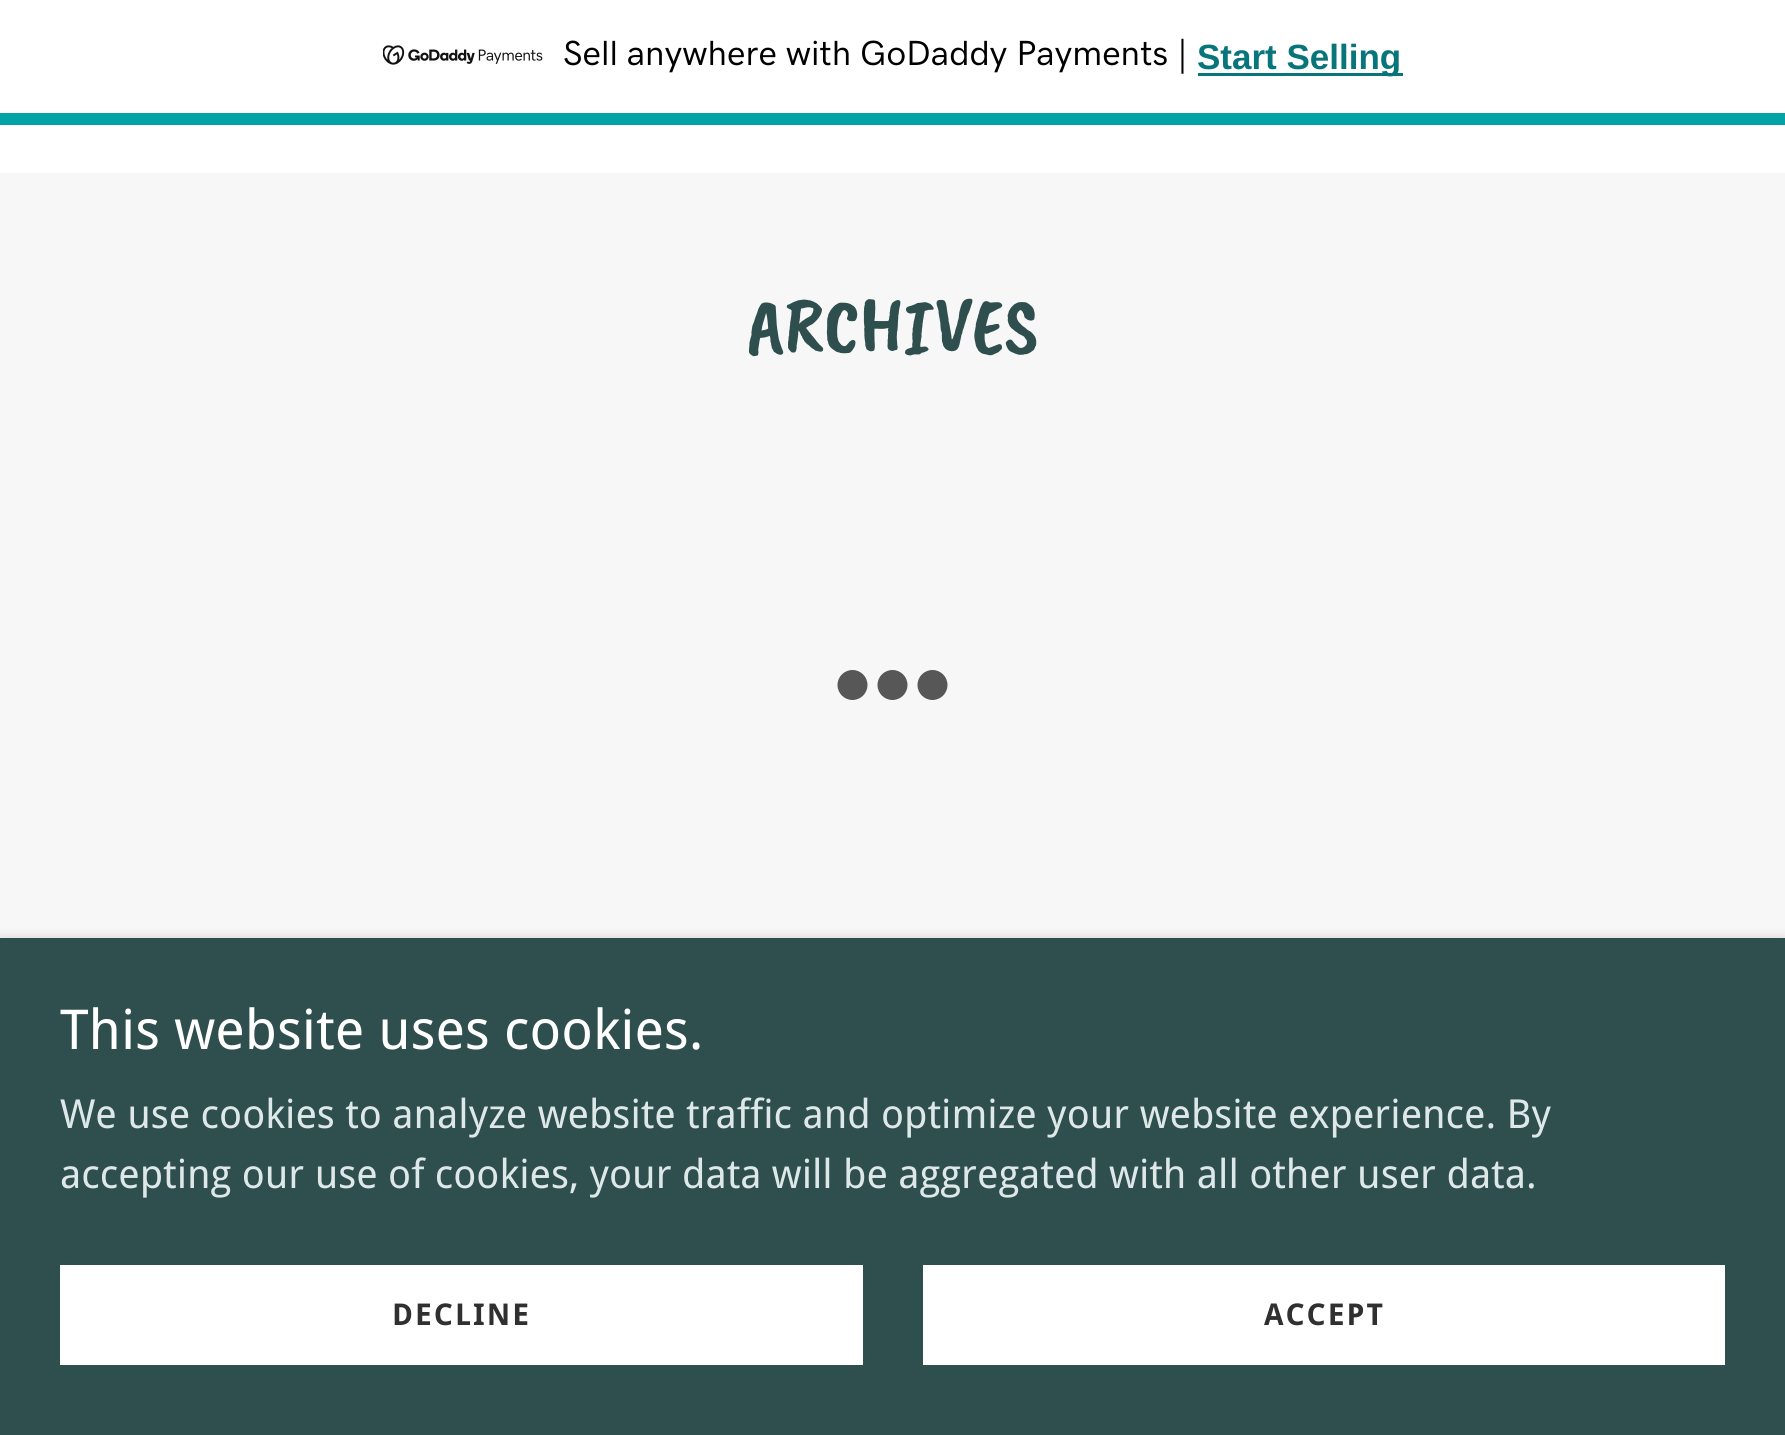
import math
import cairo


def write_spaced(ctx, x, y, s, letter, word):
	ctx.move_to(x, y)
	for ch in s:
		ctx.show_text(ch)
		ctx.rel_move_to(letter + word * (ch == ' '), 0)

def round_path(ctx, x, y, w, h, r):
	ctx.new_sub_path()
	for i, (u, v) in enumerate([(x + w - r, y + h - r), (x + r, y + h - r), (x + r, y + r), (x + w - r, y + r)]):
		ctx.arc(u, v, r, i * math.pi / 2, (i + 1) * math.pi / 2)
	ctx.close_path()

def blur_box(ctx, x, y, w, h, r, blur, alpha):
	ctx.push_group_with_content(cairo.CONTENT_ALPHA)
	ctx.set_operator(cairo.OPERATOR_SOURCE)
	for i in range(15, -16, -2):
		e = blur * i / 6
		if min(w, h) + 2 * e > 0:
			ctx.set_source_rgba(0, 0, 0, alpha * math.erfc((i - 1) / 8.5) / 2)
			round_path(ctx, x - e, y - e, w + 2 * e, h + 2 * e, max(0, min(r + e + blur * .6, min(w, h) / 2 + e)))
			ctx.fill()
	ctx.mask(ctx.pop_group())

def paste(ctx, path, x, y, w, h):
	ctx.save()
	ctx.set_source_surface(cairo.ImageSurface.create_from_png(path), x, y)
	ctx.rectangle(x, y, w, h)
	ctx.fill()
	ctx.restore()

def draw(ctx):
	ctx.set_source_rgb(1, 1, 1)
	ctx.paint()
	ctx.set_source_rgb(0, 0.643, 0.651)
	ctx.rectangle(0, 113, 1785, 12)
	ctx.fill()
	paste(ctx, 'media/1.png', 383, 45, 160, 20)
	ctx.select_font_face('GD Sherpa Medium')
	ctx.set_font_size(35)
	ctx.set_source_rgb(0, 0, 0)
	ctx.move_to(563, 65)
	ctx.show_text('Sell anywhere with GoDaddy Payments |')
	ctx.set_source_rgb(0.035, 0.459, 0.478)
	ctx.rectangle(1198, 73, 205, 3)
	ctx.fill()
	ctx.select_font_face('Liberation Sans', cairo.FONT_SLANT_NORMAL, cairo.FONT_WEIGHT_BOLD)
	ctx.move_to(1197, 69)
	ctx.show_text('Start Selling')
	ctx.set_source_rgb(0.965, 0.965, 0.965)
	ctx.rectangle(0, 173, 1785, 765)
	ctx.fill()
	ctx.select_font_face('Caveat Brush')
	ctx.set_font_size(80)
	ctx.set_source_rgb(0.184, 0.31, 0.31)
	ctx.move_to(747, 352)
	ctx.show_text('ARCHIVES')
	ctx.set_source_rgb(0.341, 0.341, 0.341)
	ctx.new_path()
	ctx.arc(852.5, 685, 15, 0, 2 * math.pi)
	ctx.fill()
	ctx.arc(892.5, 685, 15, 0, 2 * math.pi)
	ctx.fill()
	ctx.arc(932.5, 685, 15, 0, 2 * math.pi)
	ctx.fill()
	ctx.set_source_rgb(0, 0, 0)
	blur_box(ctx, 0, 943, 1785, 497, 0, 7.5, 0.3)
	ctx.set_source_rgb(0.184, 0.31, 0.31)
	ctx.rectangle(0, 938, 1785, 497)
	ctx.fill()
	ctx.select_font_face('Droid Sans')
	ctx.set_font_size(55)
	ctx.set_source_rgb(1, 1, 1)
	ctx.move_to(60, 1049)
	ctx.show_text('This website uses cookies.')
	ctx.set_font_size(40)
	ctx.set_source_rgb(0.871, 0.91, 0.91)
	ctx.move_to(60, 1128)
	ctx.show_text('We use cookies to analyze website traffic and optimize your website experience. By')
	ctx.move_to(60, 1188)
	ctx.show_text('accepting our use of cookies, your data will be aggregated with all other user data.')
	ctx.set_source_rgb(1, 1, 1)
	ctx.rectangle(60, 1265, 803, 100)
	ctx.fill()
	ctx.select_font_face('Droid Sans', cairo.FONT_SLANT_NORMAL, cairo.FONT_WEIGHT_BOLD)
	ctx.set_font_size(30)
	ctx.set_source_rgb(0.188, 0.188, 0.188)
	write_spaced(ctx, 392, 1325, 'DECLINE', 2, 0)
	ctx.set_source_rgb(1, 1, 1)
	ctx.rectangle(923, 1265, 802, 100)
	ctx.fill()
	ctx.set_source_rgb(0.188, 0.188, 0.188)
	write_spaced(ctx, 1264, 1325, 'ACCEPT', 2, 0)


surface = cairo.ImageSurface(cairo.FORMAT_RGB24, 1785, 1435)
ctx = cairo.Context(surface)
options = cairo.FontOptions()
options.set_hint_metrics(cairo.HINT_METRICS_OFF)
options.set_hint_style(cairo.HINT_STYLE_NONE)
ctx.set_font_options(options)
ctx.set_miter_limit(4)
draw(ctx)
surface.write_to_png('image.png')
